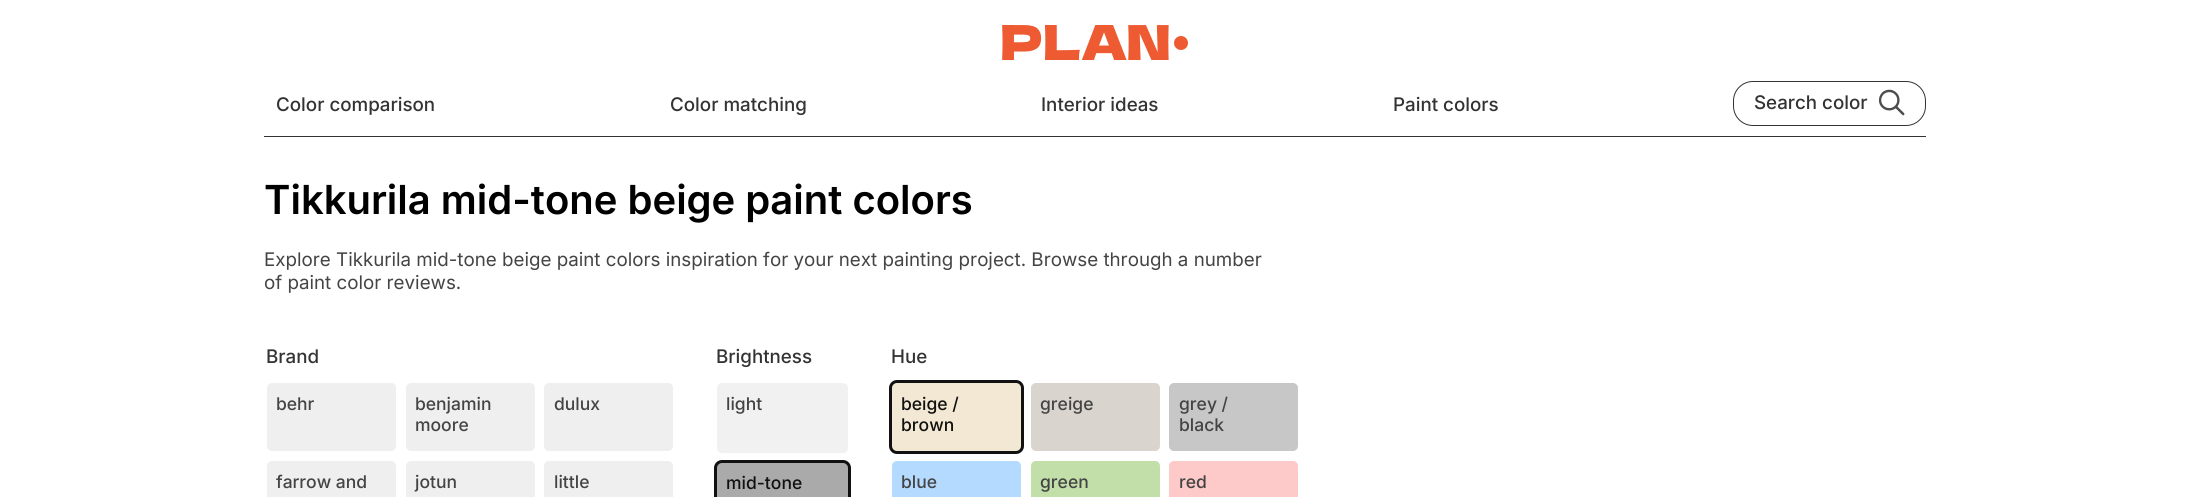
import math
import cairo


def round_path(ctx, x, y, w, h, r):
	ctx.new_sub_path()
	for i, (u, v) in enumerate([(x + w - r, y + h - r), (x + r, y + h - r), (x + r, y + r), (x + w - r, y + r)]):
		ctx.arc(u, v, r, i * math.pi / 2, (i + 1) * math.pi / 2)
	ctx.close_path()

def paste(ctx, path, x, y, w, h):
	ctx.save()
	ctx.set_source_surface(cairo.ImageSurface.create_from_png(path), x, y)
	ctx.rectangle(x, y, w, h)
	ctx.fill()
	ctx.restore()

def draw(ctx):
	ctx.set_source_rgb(1, 1, 1)
	ctx.paint()
	paste(ctx, 'media/1.png', 1002, 25, 186, 35)
	ctx.select_font_face('Inter Medium')
	ctx.set_font_size(18.75)
	ctx.set_source_rgb(0.2, 0.2, 0.2)
	for x, y, s in [
		(276, 111, 'Color comparison'),
		(670, 111, 'Color matching'),
		(1041, 111, 'Interior ideas'),
		(1393, 111, 'Paint colors'),
	]:
		ctx.move_to(x, y)
		ctx.show_text(s)
	round_path(ctx, 1733.5, 81.5, 192, 44, 19.5)
	ctx.set_line_width(1)
	ctx.stroke()
	ctx.move_to(1754, 109)
	ctx.show_text('Search color')
	paste(ctx, 'media/2.png', 1878, 89, 27, 27)
	ctx.rectangle(264, 136, 1662, 1)
	ctx.fill()
	ctx.select_font_face('Inter SemiBold')
	ctx.set_font_size(40)
	ctx.set_source_rgb(0, 0, 0)
	ctx.move_to(264, 214)
	ctx.show_text('Tikkurila mid-tone beige paint colors')
	ctx.select_font_face('Inter')
	ctx.set_font_size(18.75)
	ctx.set_source_rgb(0.267, 0.267, 0.267)
	ctx.move_to(264, 266)
	ctx.show_text('Explore Tikkurila mid-tone beige paint colors inspiration for your next painting project. Browse through a number')
	ctx.move_to(264, 289)
	ctx.show_text('of paint color reviews.')
	ctx.select_font_face('Inter Medium')
	ctx.set_source_rgb(0.2, 0.2, 0.2)
	ctx.move_to(266, 363)
	ctx.show_text('Brand')
	ctx.set_source_rgb(0.937, 0.937, 0.937)
	round_path(ctx, 265.5, 381.5, 132, 71, 6.5)
	ctx.fill_preserve()
	ctx.set_source_rgb(1, 1, 1)
	ctx.set_line_width(3)
	ctx.stroke()
	ctx.set_font_size(17.5)
	ctx.set_source_rgb(0.267, 0.267, 0.267)
	ctx.move_to(276, 410)
	ctx.show_text('behr')
	ctx.set_source_rgb(0.937, 0.937, 0.937)
	round_path(ctx, 404.5, 381.5, 132, 71, 6.5)
	ctx.fill_preserve()
	ctx.set_source_rgb(1, 1, 1)
	ctx.stroke()
	ctx.set_source_rgb(0.267, 0.267, 0.267)
	ctx.move_to(415, 410)
	ctx.show_text('benjamin')
	ctx.move_to(415, 431)
	ctx.show_text('moore')
	ctx.set_source_rgb(0.937, 0.937, 0.937)
	round_path(ctx, 542.5, 381.5, 132, 71, 6.5)
	ctx.fill_preserve()
	ctx.set_source_rgb(1, 1, 1)
	ctx.stroke()
	ctx.set_source_rgb(0.267, 0.267, 0.267)
	ctx.move_to(554, 410)
	ctx.show_text('dulux')
	ctx.set_source_rgb(0.937, 0.937, 0.937)
	round_path(ctx, 265.5, 459.5, 132, 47, 6.5)
	ctx.fill_preserve()
	ctx.set_source_rgb(1, 1, 1)
	ctx.stroke()
	ctx.set_source_rgb(0.267, 0.267, 0.267)
	ctx.move_to(276, 488)
	ctx.show_text('farrow and')
	ctx.set_source_rgb(0.937, 0.937, 0.937)
	round_path(ctx, 404.5, 459.5, 132, 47, 6.5)
	ctx.fill_preserve()
	ctx.set_source_rgb(1, 1, 1)
	ctx.stroke()
	ctx.set_source_rgb(0.267, 0.267, 0.267)
	ctx.move_to(415, 488)
	ctx.show_text('jotun')
	ctx.set_source_rgb(0.937, 0.937, 0.937)
	round_path(ctx, 542.5, 459.5, 132, 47, 6.5)
	ctx.fill_preserve()
	ctx.set_source_rgb(1, 1, 1)
	ctx.stroke()
	ctx.set_source_rgb(0.267, 0.267, 0.267)
	ctx.move_to(554, 488)
	ctx.show_text('little')
	ctx.set_font_size(18.75)
	ctx.set_source_rgb(0.2, 0.2, 0.2)
	ctx.move_to(716, 363)
	ctx.show_text('Brightness')
	ctx.set_source_rgb(0.945, 0.945, 0.945)
	round_path(ctx, 715.5, 381.5, 134, 73, 6.5)
	ctx.fill_preserve()
	ctx.set_source_rgb(1, 1, 1)
	ctx.stroke()
	ctx.set_font_size(17.5)
	ctx.set_source_rgb(0.267, 0.267, 0.267)
	ctx.move_to(726, 410)
	ctx.show_text('light')
	ctx.set_source_rgb(0.667, 0.667, 0.667)
	round_path(ctx, 715.5, 461.5, 134, 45, 6.5)
	ctx.fill_preserve()
	ctx.set_source_rgb(0.067, 0.067, 0.067)
	ctx.stroke()
	ctx.move_to(726, 489)
	ctx.show_text('mid-tone')
	ctx.set_font_size(18.75)
	ctx.set_source_rgb(0.2, 0.2, 0.2)
	ctx.move_to(891, 363)
	ctx.show_text('Hue')
	ctx.set_source_rgb(0.949, 0.91, 0.827)
	round_path(ctx, 890.5, 381.5, 132, 71, 6.5)
	ctx.fill_preserve()
	ctx.set_source_rgb(0.067, 0.067, 0.067)
	ctx.stroke()
	ctx.set_font_size(17.5)
	ctx.move_to(901, 410)
	ctx.show_text('beige /')
	ctx.move_to(901, 431)
	ctx.show_text('brown')
	ctx.set_source_rgb(0.851, 0.835, 0.808)
	round_path(ctx, 1029.5, 381.5, 132, 71, 6.5)
	ctx.fill_preserve()
	ctx.set_source_rgb(1, 1, 1)
	ctx.stroke()
	ctx.set_source_rgb(0.267, 0.267, 0.267)
	ctx.move_to(1040, 410)
	ctx.show_text('greige')
	ctx.set_source_rgb(0.78, 0.78, 0.78)
	round_path(ctx, 1167.5, 381.5, 132, 71, 6.5)
	ctx.fill_preserve()
	ctx.set_source_rgb(1, 1, 1)
	ctx.stroke()
	ctx.set_source_rgb(0.267, 0.267, 0.267)
	ctx.move_to(1179, 410)
	ctx.show_text('grey /')
	ctx.move_to(1179, 431)
	ctx.show_text('black')
	ctx.set_source_rgb(0.71, 0.855, 1)
	round_path(ctx, 890.5, 459.5, 132, 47, 6.5)
	ctx.fill_preserve()
	ctx.set_source_rgb(1, 1, 1)
	ctx.stroke()
	ctx.set_source_rgb(0.267, 0.267, 0.267)
	ctx.move_to(901, 488)
	ctx.show_text('blue')
	ctx.set_source_rgb(0.761, 0.875, 0.667)
	round_path(ctx, 1029.5, 459.5, 132, 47, 6.5)
	ctx.fill_preserve()
	ctx.set_source_rgb(1, 1, 1)
	ctx.stroke()
	ctx.set_source_rgb(0.267, 0.267, 0.267)
	ctx.move_to(1040, 488)
	ctx.show_text('green')
	ctx.set_source_rgb(0.992, 0.788, 0.788)
	round_path(ctx, 1167.5, 459.5, 132, 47, 6.5)
	ctx.fill_preserve()
	ctx.set_source_rgb(1, 1, 1)
	ctx.stroke()
	ctx.set_source_rgb(0.267, 0.267, 0.267)
	ctx.move_to(1179, 488)
	ctx.show_text('red')


surface = cairo.ImageSurface(cairo.FORMAT_RGB24, 2190, 497)
ctx = cairo.Context(surface)
options = cairo.FontOptions()
options.set_hint_metrics(cairo.HINT_METRICS_OFF)
options.set_hint_style(cairo.HINT_STYLE_NONE)
ctx.set_font_options(options)
ctx.set_miter_limit(4)
draw(ctx)
surface.write_to_png('image.png')
